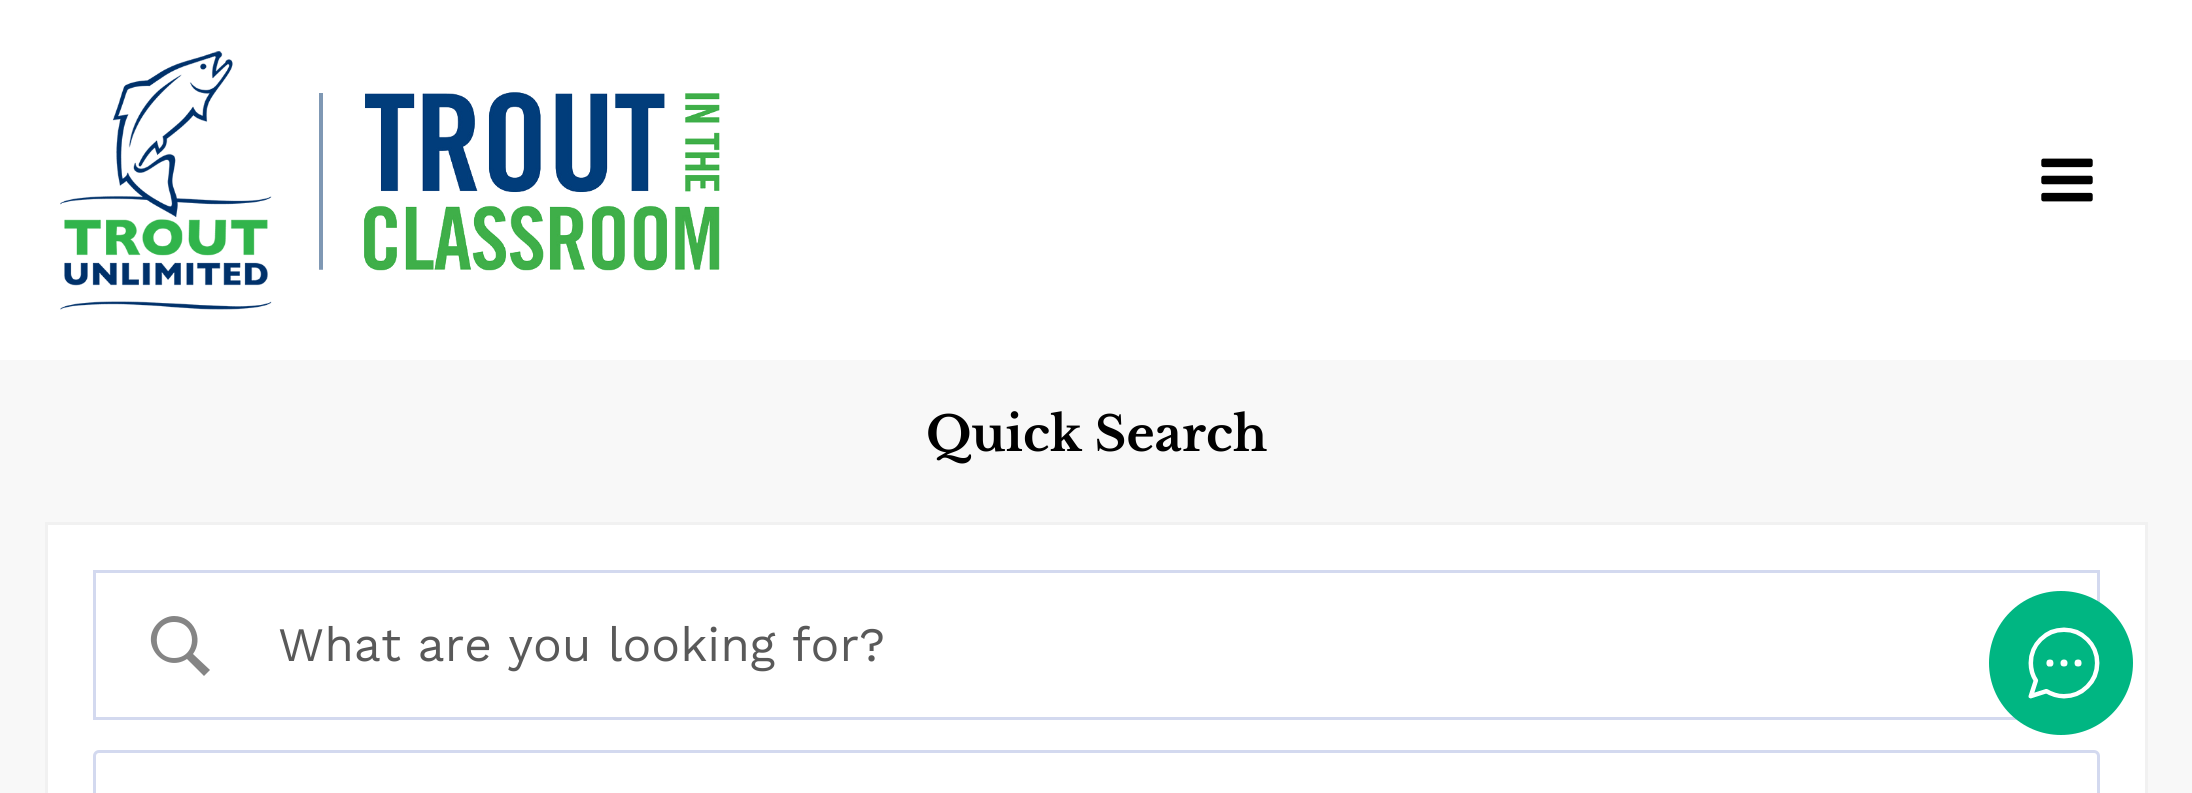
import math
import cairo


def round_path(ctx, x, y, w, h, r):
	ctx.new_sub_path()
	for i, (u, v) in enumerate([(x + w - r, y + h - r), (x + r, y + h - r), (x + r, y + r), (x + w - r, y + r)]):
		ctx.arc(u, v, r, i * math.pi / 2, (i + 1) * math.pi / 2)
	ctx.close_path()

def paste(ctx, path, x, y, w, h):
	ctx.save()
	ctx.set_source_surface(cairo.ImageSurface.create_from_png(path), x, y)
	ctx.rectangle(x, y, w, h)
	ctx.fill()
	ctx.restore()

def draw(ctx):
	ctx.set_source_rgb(0.969, 0.969, 0.969)
	ctx.paint()
	ctx.set_source_rgb(1, 1, 1)
	ctx.rectangle(0, 0, 2192, 360)
	ctx.fill()
	paste(ctx, 'media/1.png', 60, 51, 660, 259)
	paste(ctx, 'media/2.png', 2041, 158, 52, 44)
	ctx.select_font_face('Libre Baskerville', cairo.FONT_SLANT_NORMAL, cairo.FONT_WEIGHT_BOLD)
	ctx.set_font_size(48)
	ctx.set_source_rgb(0, 0, 0)
	ctx.move_to(926, 451)
	ctx.show_text('Quick Search')
	ctx.set_source_rgb(1, 1, 1)
	ctx.rectangle(46.5, 523.5, 2100, 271)
	ctx.fill_preserve()
	ctx.set_source_rgb(0.945, 0.945, 0.945)
	ctx.set_line_width(3)
	ctx.stroke()
	ctx.rectangle(94.5, 571.5, 2004, 147)
	ctx.set_source_rgb(0.827, 0.851, 0.937)
	ctx.stroke()
	ctx.set_source_rgb(0.522, 0.522, 0.522)
	ctx.new_path()
	ctx.move_to(174, 616)
	ctx.curve_to(168, 616, 162, 619, 158, 623)
	ctx.curve_to(138, 643, 164, 674, 187, 659)
	ctx.line_to(204, 676)
	ctx.line_to(210, 670)
	ctx.line_to(193, 654)
	ctx.curve_to(204, 639, 194, 616, 174, 616)
	ctx.close_path()
	ctx.move_to(174, 622)
	ctx.curve_to(198, 622, 198, 658, 174, 658)
	ctx.curve_to(151, 658, 151, 622, 174, 622)
	ctx.close_path()
	ctx.fill()
	ctx.select_font_face('Work Sans')
	ctx.set_source_rgb(0.349, 0.349, 0.349)
	ctx.move_to(278, 661)
	ctx.show_text('What are you looking for?')
	round_path(ctx, 94.5, 751.5, 2004, 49, 4.5)
	ctx.set_source_rgb(0.827, 0.851, 0.937)
	ctx.stroke()
	ctx.set_source_rgb(0, 0.714, 0.51)
	ctx.arc(2061, 663, 72, 0, 2 * math.pi)
	ctx.fill()
	paste(ctx, 'media/3.png', 2028, 627, 72, 72)


surface = cairo.ImageSurface(cairo.FORMAT_RGB24, 2192, 793)
ctx = cairo.Context(surface)
options = cairo.FontOptions()
options.set_hint_metrics(cairo.HINT_METRICS_OFF)
options.set_hint_style(cairo.HINT_STYLE_NONE)
ctx.set_font_options(options)
ctx.set_miter_limit(4)
draw(ctx)
surface.write_to_png('image.png')
